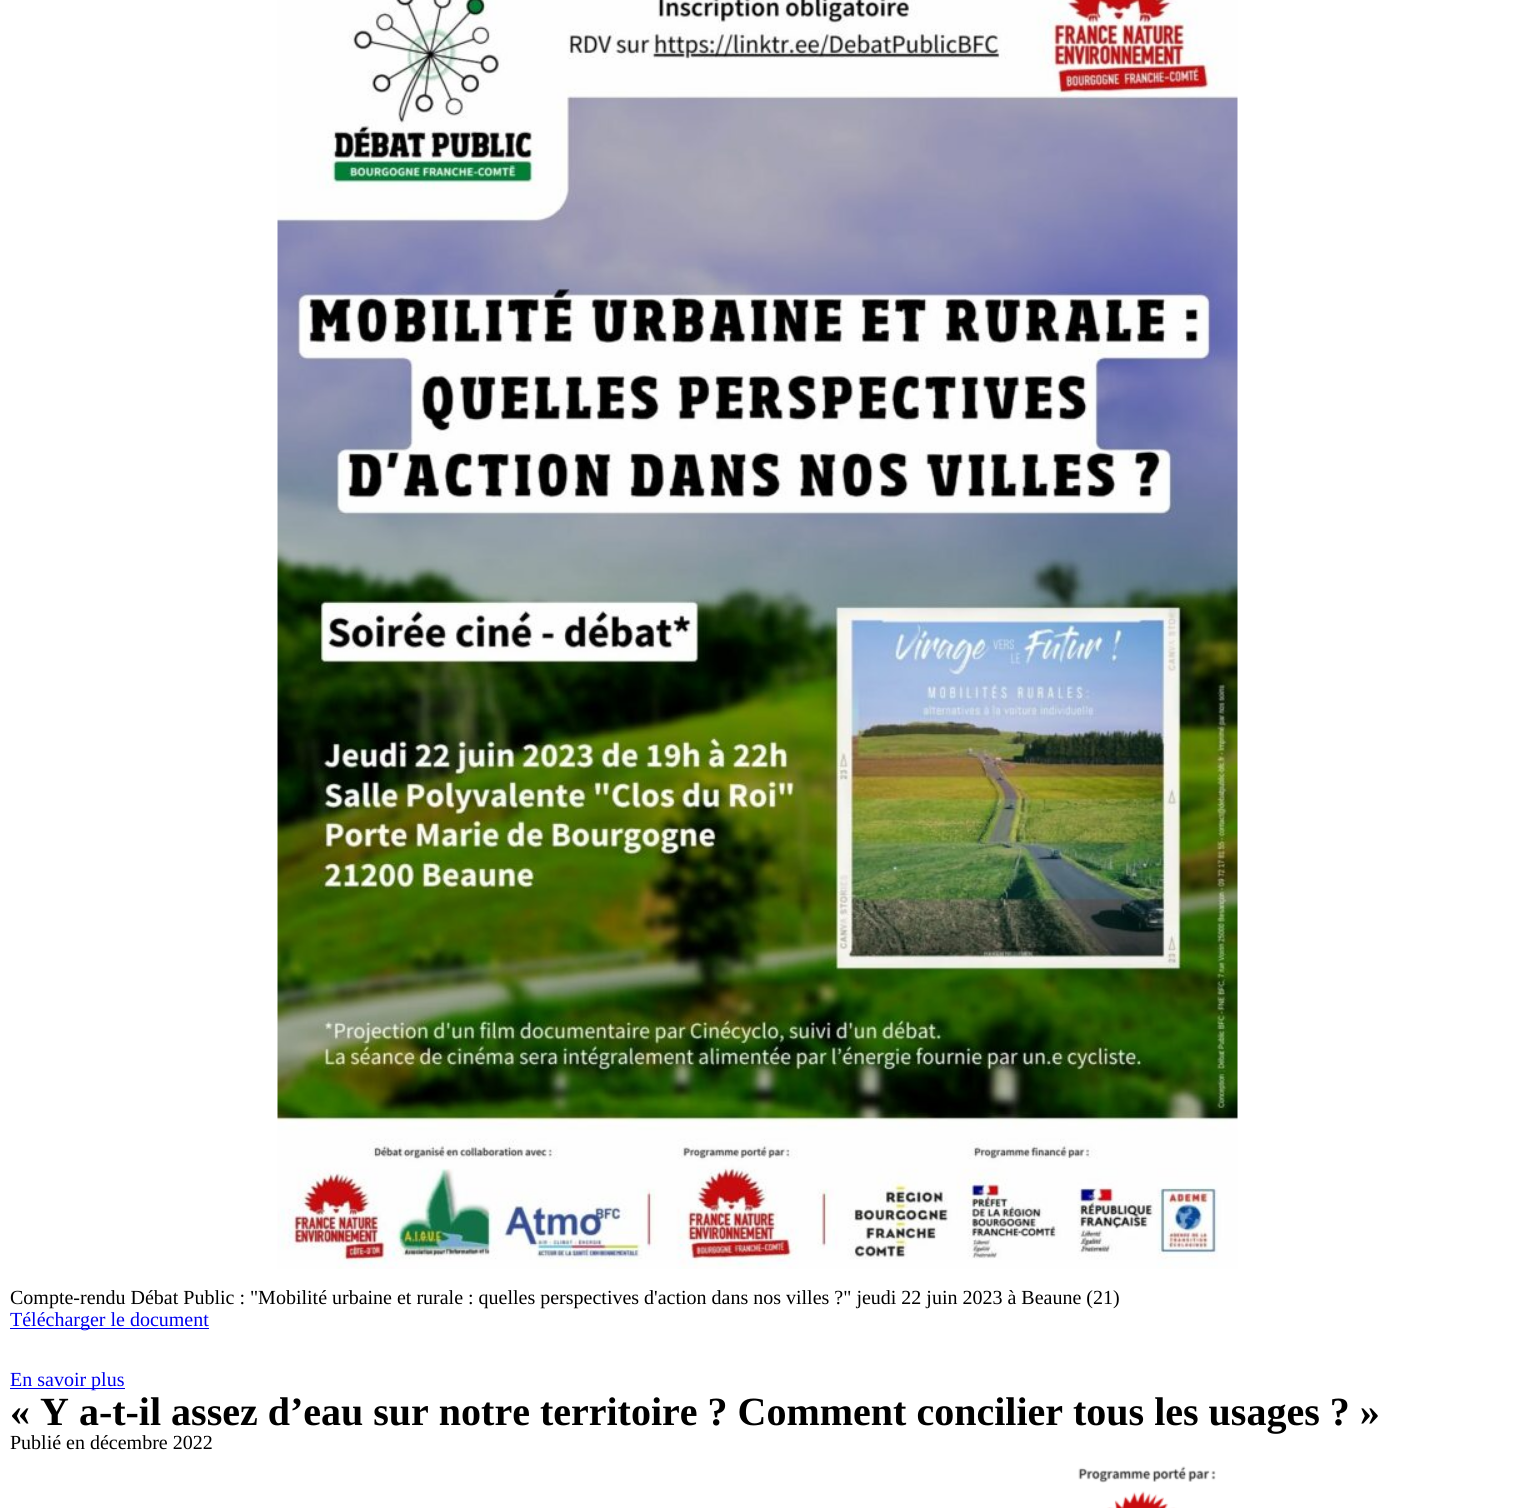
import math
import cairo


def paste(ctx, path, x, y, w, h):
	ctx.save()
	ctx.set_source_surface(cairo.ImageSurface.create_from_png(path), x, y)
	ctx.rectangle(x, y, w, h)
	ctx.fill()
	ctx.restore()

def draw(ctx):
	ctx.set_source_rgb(1, 1, 1)
	ctx.paint()
	paste(ctx, 'media/1.png', 277, 0, 961, 1269)
	ctx.select_font_face('Liberation Serif')
	ctx.set_font_size(20)
	ctx.set_source_rgb(0, 0, 0)
	ctx.move_to(10, 1304)
	ctx.show_text('Compte-rendu Débat Public : "Mobilité urbaine et rurale : quelles perspectives d\'action dans nos villes ?" jeudi 22 juin 2023 à Beaune (21)')
	ctx.set_source_rgb(0, 0, 0.933)
	ctx.rectangle(10, 1328, 199, 1)
	ctx.fill()
	ctx.move_to(10, 1326)
	ctx.show_text('Télécharger le document')
	ctx.rectangle(10, 1388, 115, 1)
	ctx.fill()
	ctx.move_to(10, 1386)
	ctx.show_text('En savoir plus')
	ctx.select_font_face('Liberation Serif', cairo.FONT_SLANT_NORMAL, cairo.FONT_WEIGHT_BOLD)
	ctx.set_font_size(40)
	ctx.set_source_rgb(0, 0, 0)
	ctx.move_to(10, 1425)
	ctx.show_text('« Y a-t-il assez d’eau sur notre territoire ? Comment concilier tous les usages ? »')
	ctx.select_font_face('Liberation Serif')
	ctx.set_font_size(20)
	ctx.move_to(10, 1449)
	ctx.show_text('Publié en décembre 2022')
	paste(ctx, 'media/2.png', 1078, 1466, 138, 42)


surface = cairo.ImageSurface(cairo.FORMAT_RGB24, 1513, 1508)
ctx = cairo.Context(surface)
options = cairo.FontOptions()
options.set_hint_metrics(cairo.HINT_METRICS_OFF)
options.set_hint_style(cairo.HINT_STYLE_NONE)
ctx.set_font_options(options)
ctx.set_miter_limit(4)
draw(ctx)
surface.write_to_png('image.png')
